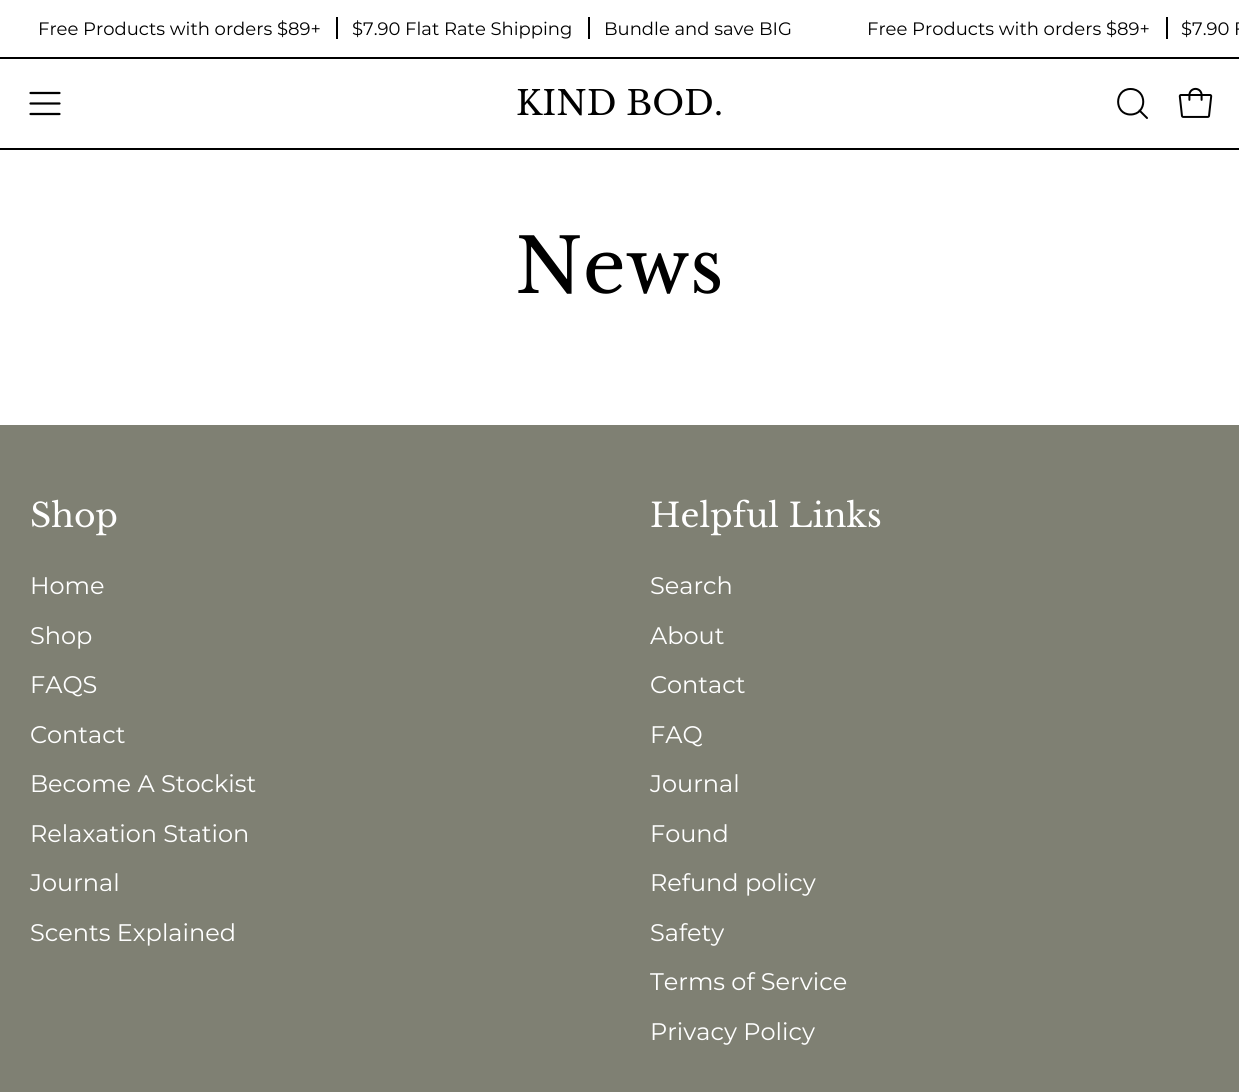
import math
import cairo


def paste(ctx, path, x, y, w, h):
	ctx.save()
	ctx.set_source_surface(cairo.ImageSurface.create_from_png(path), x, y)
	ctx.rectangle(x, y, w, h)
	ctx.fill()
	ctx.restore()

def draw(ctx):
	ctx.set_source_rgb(1, 1, 1)
	ctx.paint()
	ctx.set_source_rgb(0, 0, 0)
	ctx.rectangle(0, 57, 1239, 2)
	ctx.fill()
	ctx.select_font_face('Montserrat')
	ctx.set_font_size(18)
	ctx.move_to(38, 35)
	ctx.show_text('Free Products with orders $89+')
	ctx.rectangle(336, 17, 2, 22)
	ctx.fill()
	ctx.move_to(352, 35)
	ctx.show_text('$7.90 Flat Rate Shipping')
	ctx.rectangle(588, 17, 2, 22)
	ctx.fill()
	ctx.move_to(604, 35)
	ctx.show_text('Bundle and save BIG')
	ctx.move_to(867, 35)
	ctx.show_text('Free Products with orders $89+')
	ctx.rectangle(1166, 17, 2, 22)
	ctx.fill()
	ctx.move_to(1181, 35)
	ctx.show_text('$7.90 F')
	ctx.new_path()
	ctx.move_to(30.5, 103.5)
	ctx.line_to(59.5, 103.5)
	ctx.move_to(30.5, 93)
	ctx.line_to(59.5, 93)
	ctx.move_to(30.5, 114)
	ctx.line_to(59.5, 114)
	ctx.set_line_width(2.2)
	ctx.set_line_cap(cairo.LINE_CAP_ROUND)
	ctx.set_line_join(cairo.LINE_JOIN_ROUND)
	ctx.stroke()
	ctx.select_font_face('Libre Baskerville')
	ctx.set_font_size(33.75)
	ctx.move_to(516, 115)
	ctx.show_text('KIND BOD.')
	ctx.new_path()
	ctx.move_to(1130.5, 114.5)
	ctx.curve_to(1147.5, 114.5, 1147.5, 89, 1130.5, 89)
	ctx.curve_to(1114, 89, 1114, 114.5, 1130.5, 114.5)
	ctx.close_path()
	ctx.move_to(1139.5, 110.5)
	ctx.line_to(1147, 118)
	ctx.set_line_width(2)
	ctx.stroke()
	paste(ctx, 'media/1.png', 1178, 87, 35, 31)
	ctx.rectangle(0, 148, 1239, 2)
	ctx.fill()
	ctx.set_font_size(75)
	ctx.move_to(515, 293)
	ctx.show_text('News')
	ctx.set_source_rgb(0.498, 0.502, 0.451)
	ctx.rectangle(0, 425, 1239, 667)
	ctx.fill()
	ctx.set_font_size(33)
	ctx.set_source_rgb(1, 1, 1)
	ctx.move_to(30, 527)
	ctx.show_text('Shop')
	ctx.select_font_face('Montserrat')
	ctx.set_font_size(24)
	for x, y, s in [
		(30, 594, 'Home'),
		(30, 644, 'Shop'),
		(30, 693, 'FAQS'),
		(30, 743, 'Contact'),
		(30, 792, 'Become A Stockist'),
		(30, 842, 'Relaxation Station'),
		(30, 891, 'Journal'),
		(30, 941, 'Scents Explained'),
	]:
		ctx.move_to(x, y)
		ctx.show_text(s)
	ctx.select_font_face('Libre Baskerville')
	ctx.set_font_size(33)
	ctx.move_to(650, 527)
	ctx.show_text('Helpful Links')
	ctx.select_font_face('Montserrat')
	ctx.set_font_size(24)
	for x, y, s in [
		(650, 594, 'Search'),
		(650, 644, 'About'),
		(650, 693, 'Contact'),
		(650, 743, 'FAQ'),
		(650, 792, 'Journal'),
		(650, 842, 'Found'),
		(650, 891, 'Refund policy'),
		(650, 941, 'Safety'),
		(650, 990, 'Terms of Service'),
		(650, 1040, 'Privacy Policy'),
	]:
		ctx.move_to(x, y)
		ctx.show_text(s)


surface = cairo.ImageSurface(cairo.FORMAT_RGB24, 1239, 1092)
ctx = cairo.Context(surface)
options = cairo.FontOptions()
options.set_hint_metrics(cairo.HINT_METRICS_OFF)
options.set_hint_style(cairo.HINT_STYLE_NONE)
ctx.set_font_options(options)
ctx.set_miter_limit(4)
draw(ctx)
surface.write_to_png('image.png')
